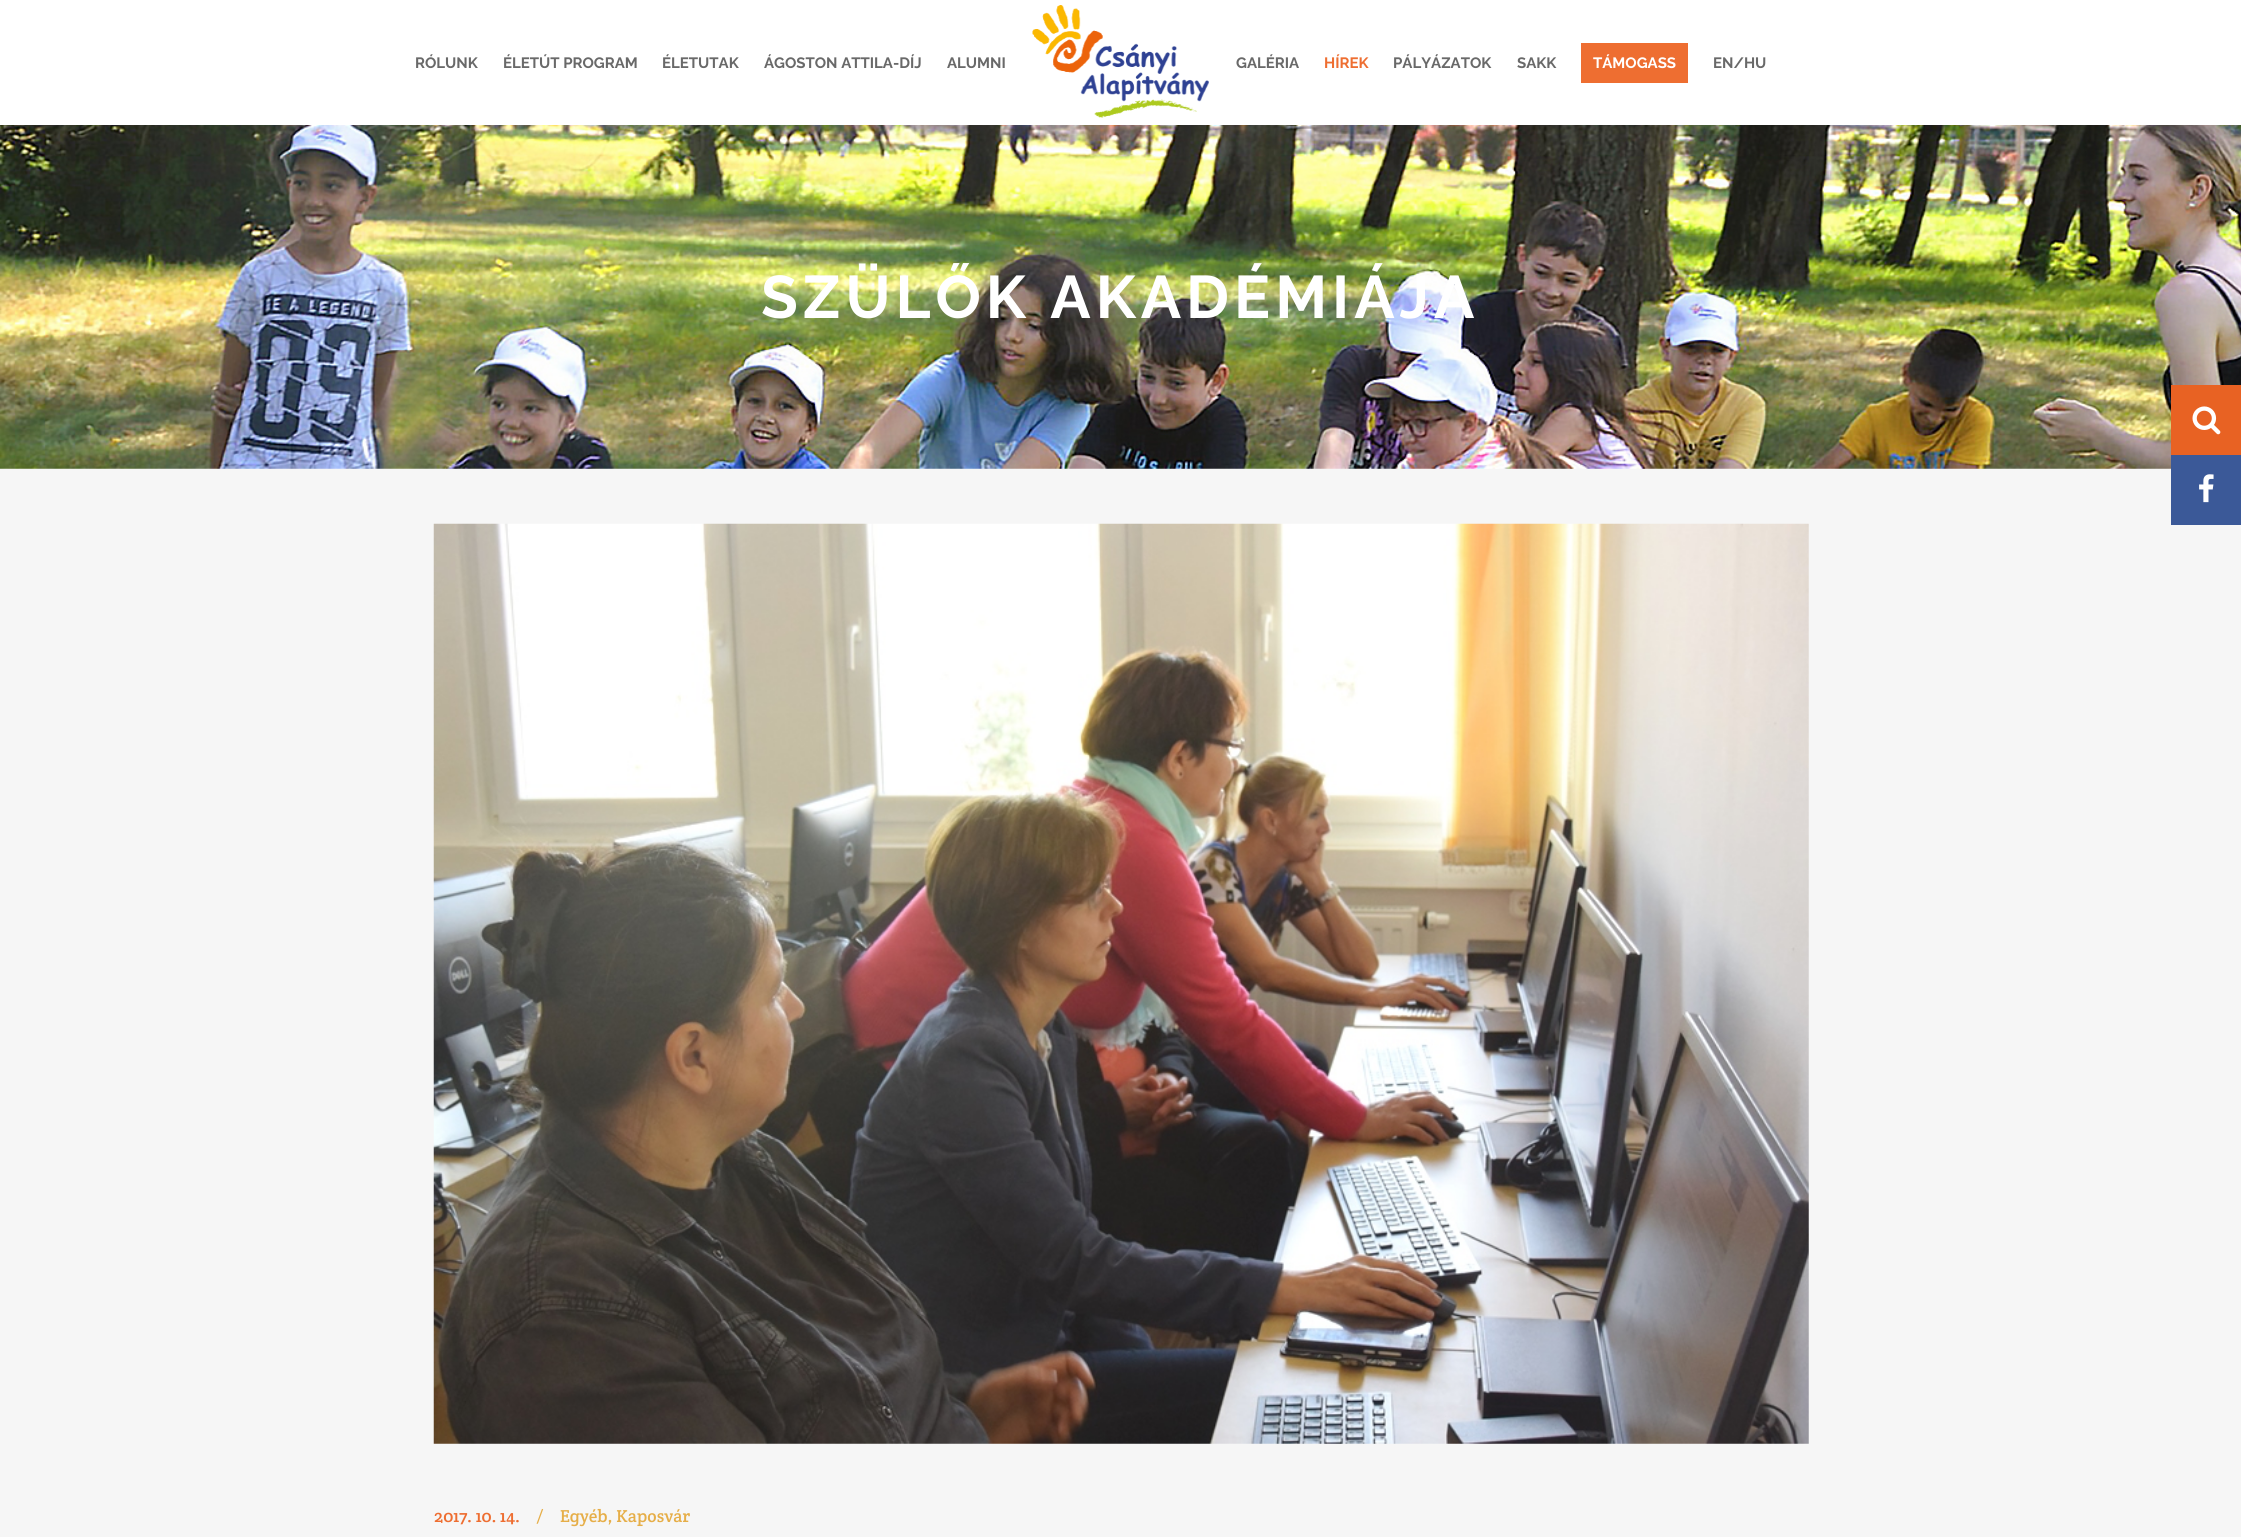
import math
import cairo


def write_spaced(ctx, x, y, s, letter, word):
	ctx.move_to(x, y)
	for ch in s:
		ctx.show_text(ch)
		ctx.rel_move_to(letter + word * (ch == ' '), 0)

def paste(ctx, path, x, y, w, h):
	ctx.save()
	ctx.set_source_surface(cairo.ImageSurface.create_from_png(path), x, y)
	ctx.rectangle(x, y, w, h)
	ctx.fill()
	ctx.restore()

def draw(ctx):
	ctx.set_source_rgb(0.961, 0.961, 0.961)
	ctx.paint()
	ctx.set_source_rgb(1, 1, 1)
	ctx.rectangle(0, 0, 2241, 125)
	ctx.fill()
	ctx.select_font_face('Raleway', cairo.FONT_SLANT_NORMAL, cairo.FONT_WEIGHT_BOLD)
	ctx.set_font_size(15)
	ctx.set_source_rgb(0.412, 0.412, 0.412)
	for x, y, s in [
		(415, 68, 'RÓLUNK'),
		(503, 68, 'ÉLETÚT PROGRAM'),
		(662, 68, 'ÉLETUTAK'),
		(764, 68, 'ÁGOSTON ATTILA-DÍJ'),
		(947, 68, 'ALUMNI'),
	]:
		ctx.move_to(x, y)
		ctx.show_text(s)
	paste(ctx, 'media/1.png', 1032, 5, 177, 113)
	ctx.move_to(1236, 68)
	ctx.show_text('GALÉRIA')
	ctx.set_source_rgb(0.933, 0.431, 0.192)
	ctx.move_to(1324, 68)
	ctx.show_text('HÍREK')
	ctx.set_source_rgb(0.412, 0.412, 0.412)
	ctx.move_to(1393, 68)
	ctx.show_text('PÁLYÁZATOK')
	ctx.move_to(1517, 68)
	ctx.show_text('SAKK')
	ctx.set_source_rgb(0.933, 0.431, 0.192)
	ctx.rectangle(1581, 43, 107, 40)
	ctx.fill()
	ctx.set_source_rgb(1, 1, 1)
	ctx.move_to(1593, 68)
	ctx.show_text('TÁMOGASS')
	ctx.set_source_rgb(0.412, 0.412, 0.412)
	ctx.move_to(1713, 68)
	ctx.show_text('EN/HU')
	paste(ctx, 'media/2.png', 0, 125, 2241, 344)
	ctx.set_font_size(60)
	ctx.set_source_rgb(1, 1, 1)
	write_spaced(ctx, 761, 318, 'SZÜLŐK AKADÉMIÁJA', 5, 0)
	paste(ctx, 'media/3.png', 433, 523, 1376, 921)
	ctx.select_font_face('Crete Round')
	ctx.set_font_size(17.5)
	ctx.set_source_rgb(0.933, 0.431, 0.192)
	ctx.move_to(434, 1522)
	ctx.show_text('2017. 10. 14.')
	ctx.set_source_rgb(0.902, 0.682, 0.282)
	ctx.move_to(536, 1522)
	ctx.show_text('/')
	ctx.move_to(560, 1522)
	ctx.show_text('Egyéb, Kaposvár')
	ctx.set_source_rgb(0.91, 0.384, 0.137)
	ctx.rectangle(2171, 385, 70, 70)
	ctx.fill()
	paste(ctx, 'media/4.png', 2192, 406, 29, 29)
	ctx.set_source_rgb(0.231, 0.349, 0.596)
	ctx.rectangle(2171, 455, 70, 70)
	ctx.fill()
	paste(ctx, 'media/5.png', 2199, 474, 15, 29)


surface = cairo.ImageSurface(cairo.FORMAT_RGB24, 2241, 1537)
ctx = cairo.Context(surface)
options = cairo.FontOptions()
options.set_hint_metrics(cairo.HINT_METRICS_OFF)
options.set_hint_style(cairo.HINT_STYLE_NONE)
ctx.set_font_options(options)
ctx.set_miter_limit(4)
draw(ctx)
surface.write_to_png('image.png')
